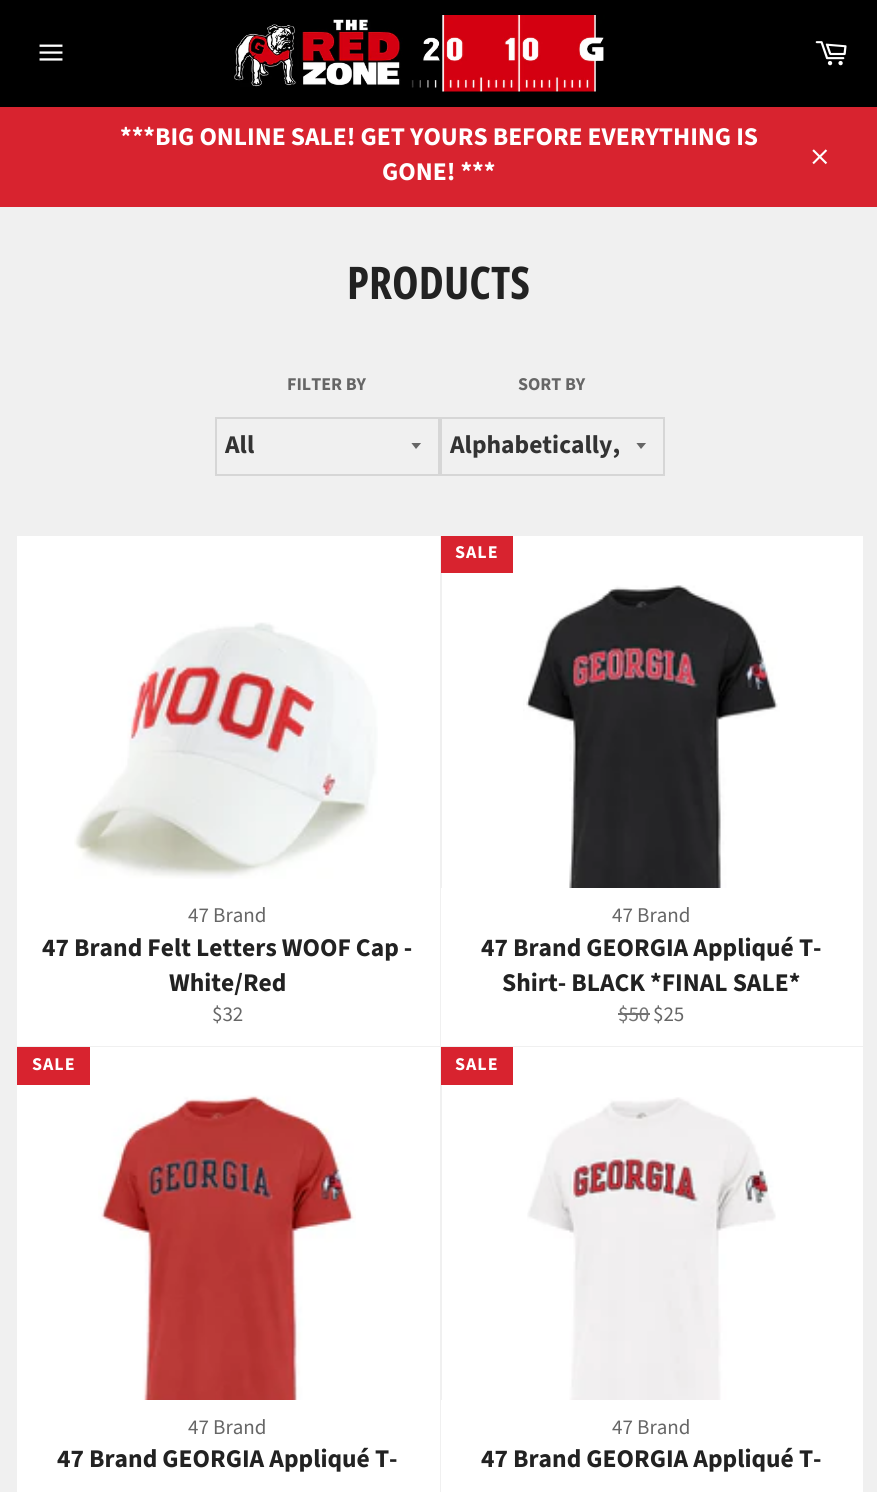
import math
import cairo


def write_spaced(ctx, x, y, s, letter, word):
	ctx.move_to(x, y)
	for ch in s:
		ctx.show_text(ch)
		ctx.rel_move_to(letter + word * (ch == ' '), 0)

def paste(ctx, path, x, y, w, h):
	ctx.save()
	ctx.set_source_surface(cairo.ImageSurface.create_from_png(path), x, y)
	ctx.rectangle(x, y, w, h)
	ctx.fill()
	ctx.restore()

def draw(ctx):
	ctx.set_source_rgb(0.941, 0.941, 0.941)
	ctx.paint()
	ctx.set_source_rgb(0, 0, 0)
	ctx.rectangle(0, 0, 877, 107)
	ctx.fill()
	paste(ctx, 'media/1.png', 39, 44, 24, 17)
	paste(ctx, 'media/2.png', 234, 15, 371, 77)
	paste(ctx, 'media/3.png', 815, 41, 32, 25)
	ctx.set_source_rgb(0.847, 0.137, 0.184)
	ctx.rectangle(0, 107, 877, 100)
	ctx.fill()
	ctx.select_font_face('Source Sans Pro', cairo.FONT_SLANT_NORMAL, cairo.FONT_WEIGHT_BOLD)
	ctx.set_font_size(25.5)
	ctx.set_source_rgb(1, 1, 1)
	ctx.move_to(120, 145)
	ctx.show_text('***BIG ONLINE SALE! GET YOURS BEFORE EVERYTHING IS')
	ctx.move_to(382, 180)
	ctx.show_text('GONE! ***')
	paste(ctx, 'media/4.png', 812, 149, 16, 16)
	ctx.select_font_face('Open Sans Condensed', cairo.FONT_SLANT_NORMAL, cairo.FONT_WEIGHT_BOLD)
	ctx.set_font_size(45)
	ctx.set_source_rgb(0.133, 0.133, 0.133)
	ctx.move_to(347, 299)
	ctx.show_text('PRODUCTS')
	ctx.select_font_face('Source Sans Pro', cairo.FONT_SLANT_NORMAL, cairo.FONT_WEIGHT_BOLD)
	ctx.set_font_size(18)
	ctx.set_source_rgb(0.4, 0.4, 0.4)
	ctx.move_to(287, 390)
	ctx.show_text('FILTER BY')
	ctx.save()
	ctx.rectangle(411, 443, 12, 7)
	ctx.clip()
	ctx.new_path()
	ctx.move_to(411, 442.5)
	ctx.line_to(416, 449)
	ctx.line_to(421.5, 442.5)
	ctx.close_path()
	ctx.fill()
	ctx.restore()
	ctx.rectangle(216, 418, 223, 57)
	ctx.set_source_rgb(0.839, 0.839, 0.839)
	ctx.stroke()
	ctx.set_font_size(25.5)
	ctx.set_source_rgb(0.2, 0.2, 0.2)
	ctx.move_to(225, 453)
	ctx.show_text('All')
	ctx.set_font_size(18)
	ctx.set_source_rgb(0.4, 0.4, 0.4)
	ctx.move_to(518, 390)
	ctx.show_text('SORT BY')
	ctx.save()
	ctx.rectangle(636, 443, 12, 7)
	ctx.clip()
	ctx.new_path()
	ctx.move_to(636, 442.5)
	ctx.line_to(641, 449)
	ctx.line_to(646.5, 442.5)
	ctx.close_path()
	ctx.fill()
	ctx.restore()
	ctx.rectangle(441, 418, 223, 57)
	ctx.set_source_rgb(0.839, 0.839, 0.839)
	ctx.stroke()
	ctx.set_font_size(25.5)
	ctx.set_source_rgb(0.2, 0.2, 0.2)
	ctx.move_to(450, 453)
	ctx.show_text('Alphabetically,')
	ctx.set_source_rgb(1, 1, 1)
	ctx.rectangle(17, 536, 423, 510)
	ctx.fill()
	paste(ctx, 'media/5.png', 74, 622, 304, 257)
	ctx.select_font_face('Source Sans Pro')
	ctx.set_font_size(21)
	ctx.set_source_rgb(0.4, 0.4, 0.4)
	ctx.move_to(188, 922)
	ctx.show_text('47 Brand')
	ctx.select_font_face('Source Sans Pro', cairo.FONT_SLANT_NORMAL, cairo.FONT_WEIGHT_BOLD)
	ctx.set_font_size(25.5)
	ctx.set_source_rgb(0.133, 0.133, 0.133)
	ctx.move_to(42, 956)
	ctx.show_text('47 Brand Felt Letters WOOF Cap -')
	ctx.move_to(169, 991)
	ctx.show_text('White/Red')
	ctx.select_font_face('Source Sans Pro')
	ctx.set_font_size(21)
	ctx.set_source_rgb(0.4, 0.4, 0.4)
	ctx.move_to(212, 1021)
	ctx.show_text('$32')
	ctx.set_source_rgb(1, 1, 1)
	ctx.rectangle(442, 536, 421, 352)
	ctx.fill()
	ctx.set_source_rgb(0.847, 0.137, 0.184)
	ctx.rectangle(441, 536, 72, 37)
	ctx.fill()
	ctx.select_font_face('Source Sans Pro', cairo.FONT_SLANT_NORMAL, cairo.FONT_WEIGHT_BOLD)
	ctx.set_font_size(18)
	ctx.set_source_rgb(1, 1, 1)
	write_spaced(ctx, 455, 558, 'SALE', 1, 0)
	paste(ctx, 'media/6.png', 523, 585, 257, 303)
	ctx.rectangle(441, 888, 422, 158)
	ctx.fill()
	ctx.select_font_face('Source Sans Pro')
	ctx.set_font_size(21)
	ctx.set_source_rgb(0.4, 0.4, 0.4)
	ctx.move_to(612, 922)
	ctx.show_text('47 Brand')
	ctx.select_font_face('Source Sans Pro', cairo.FONT_SLANT_NORMAL, cairo.FONT_WEIGHT_BOLD)
	ctx.set_font_size(25.5)
	ctx.set_source_rgb(0.133, 0.133, 0.133)
	ctx.move_to(481, 956)
	ctx.show_text('47 Brand GEORGIA Appliqué T-')
	ctx.move_to(502, 991)
	ctx.show_text('Shirt- BLACK *FINAL SALE*')
	ctx.select_font_face('Source Sans Pro')
	ctx.set_font_size(21)
	ctx.set_source_rgb(0.451, 0.451, 0.451)
	ctx.move_to(618, 1021)
	ctx.show_text('$50')
	ctx.rectangle(618, 1013, 32, 2)
	ctx.fill()
	ctx.set_source_rgb(0.4, 0.4, 0.4)
	ctx.move_to(653, 1021)
	ctx.show_text('$25')
	ctx.set_source_rgb(1, 1, 1)
	ctx.rectangle(17, 1047, 423, 445)
	ctx.fill()
	ctx.set_source_rgb(0.847, 0.137, 0.184)
	ctx.rectangle(17, 1047, 73, 38)
	ctx.fill()
	ctx.select_font_face('Source Sans Pro', cairo.FONT_SLANT_NORMAL, cairo.FONT_WEIGHT_BOLD)
	ctx.set_font_size(18)
	ctx.set_source_rgb(1, 1, 1)
	write_spaced(ctx, 32, 1070, 'SALE', 1, 0)
	paste(ctx, 'media/7.png', 98, 1095, 258, 305)
	ctx.select_font_face('Source Sans Pro')
	ctx.set_font_size(21)
	ctx.set_source_rgb(0.4, 0.4, 0.4)
	ctx.move_to(188, 1434)
	ctx.show_text('47 Brand')
	ctx.select_font_face('Source Sans Pro', cairo.FONT_SLANT_NORMAL, cairo.FONT_WEIGHT_BOLD)
	ctx.set_font_size(25.5)
	ctx.set_source_rgb(0.133, 0.133, 0.133)
	ctx.move_to(57, 1467)
	ctx.show_text('47 Brand GEORGIA Appliqué T-')
	ctx.set_source_rgb(1, 1, 1)
	ctx.rectangle(442, 1047, 421, 353)
	ctx.fill()
	ctx.set_source_rgb(0.847, 0.137, 0.184)
	ctx.rectangle(441, 1047, 72, 38)
	ctx.fill()
	ctx.set_font_size(18)
	ctx.set_source_rgb(1, 1, 1)
	write_spaced(ctx, 455, 1070, 'SALE', 1, 0)
	paste(ctx, 'media/8.png', 527, 1097, 249, 303)
	ctx.rectangle(441, 1400, 422, 92)
	ctx.fill()
	ctx.select_font_face('Source Sans Pro')
	ctx.set_font_size(21)
	ctx.set_source_rgb(0.4, 0.4, 0.4)
	ctx.move_to(612, 1434)
	ctx.show_text('47 Brand')
	ctx.select_font_face('Source Sans Pro', cairo.FONT_SLANT_NORMAL, cairo.FONT_WEIGHT_BOLD)
	ctx.set_font_size(25.5)
	ctx.set_source_rgb(0.133, 0.133, 0.133)
	ctx.move_to(481, 1467)
	ctx.show_text('47 Brand GEORGIA Appliqué T-')


surface = cairo.ImageSurface(cairo.FORMAT_RGB24, 877, 1492)
ctx = cairo.Context(surface)
options = cairo.FontOptions()
options.set_hint_metrics(cairo.HINT_METRICS_OFF)
options.set_hint_style(cairo.HINT_STYLE_NONE)
ctx.set_font_options(options)
ctx.set_miter_limit(4)
draw(ctx)
surface.write_to_png('image.png')
